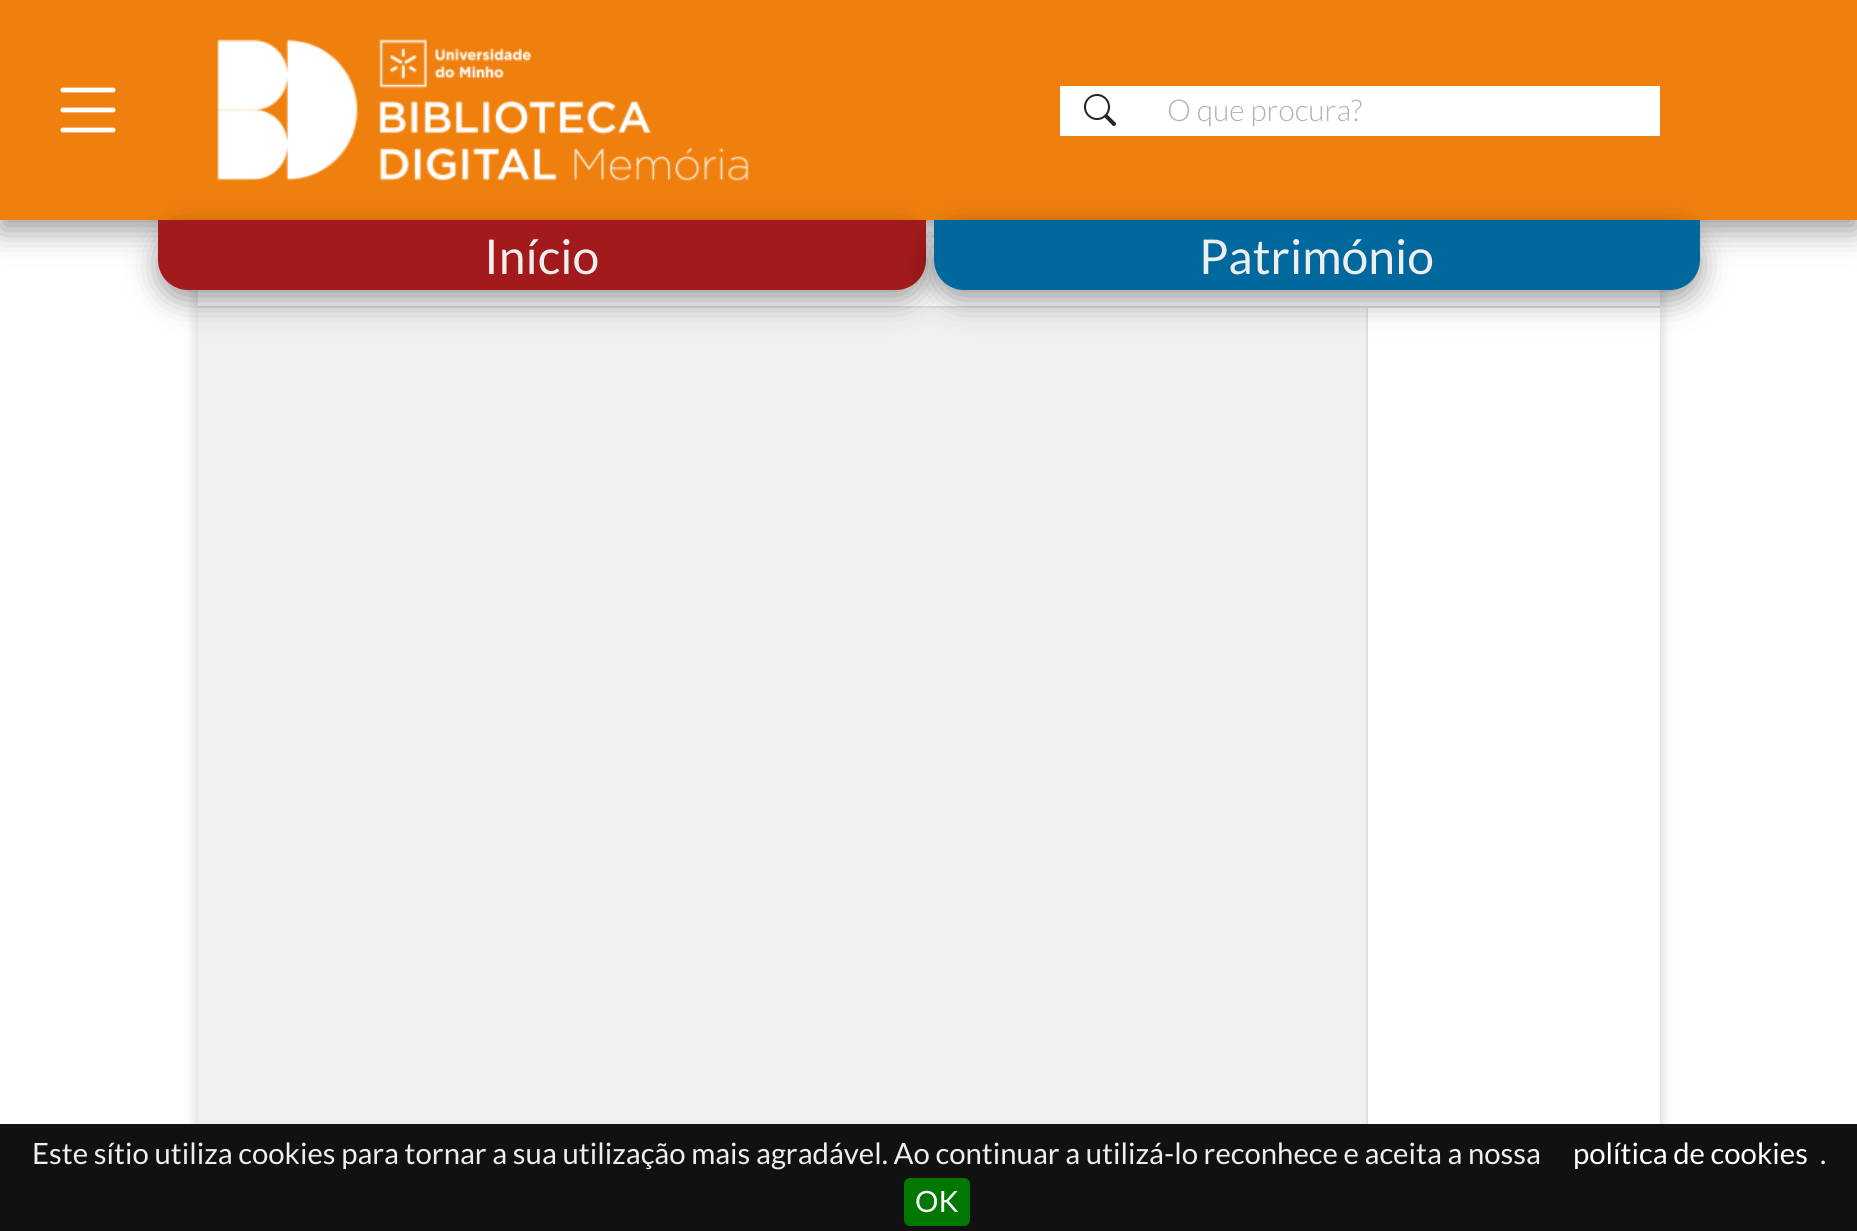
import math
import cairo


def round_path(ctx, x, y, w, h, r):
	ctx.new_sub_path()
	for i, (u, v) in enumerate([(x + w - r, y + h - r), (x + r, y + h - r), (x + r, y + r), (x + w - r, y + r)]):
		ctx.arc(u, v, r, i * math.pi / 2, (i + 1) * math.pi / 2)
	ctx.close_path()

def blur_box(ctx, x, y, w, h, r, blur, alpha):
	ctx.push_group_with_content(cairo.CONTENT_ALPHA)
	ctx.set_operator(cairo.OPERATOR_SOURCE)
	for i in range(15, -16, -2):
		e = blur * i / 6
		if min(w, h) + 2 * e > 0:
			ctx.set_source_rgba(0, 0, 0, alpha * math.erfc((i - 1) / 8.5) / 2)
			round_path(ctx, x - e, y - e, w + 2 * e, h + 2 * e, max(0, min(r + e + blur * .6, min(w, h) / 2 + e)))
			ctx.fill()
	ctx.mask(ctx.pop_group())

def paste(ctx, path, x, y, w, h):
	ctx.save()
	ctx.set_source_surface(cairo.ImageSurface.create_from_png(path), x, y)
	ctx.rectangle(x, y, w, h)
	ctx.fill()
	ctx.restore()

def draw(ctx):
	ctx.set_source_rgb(1, 1, 1)
	ctx.paint()
	ctx.set_source_rgb(0, 0, 0)
	blur_box(ctx, 0, 10, 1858, 220, 0, 15, 0.4)
	ctx.save()
	ctx.set_fill_rule(cairo.FILL_RULE_EVEN_ODD)
	ctx.new_path()
	ctx.move_to(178, 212)
	ctx.line_to(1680, 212)
	ctx.line_to(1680, 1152)
	ctx.line_to(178, 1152)
	ctx.close_path()
	ctx.move_to(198, 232)
	ctx.line_to(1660, 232)
	ctx.line_to(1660, 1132)
	ctx.line_to(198, 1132)
	ctx.close_path()
	ctx.clip()
	ctx.set_source_rgb(0.878, 0.878, 0.878)
	blur_box(ctx, 194, 228, 1470, 908, 0, 5, 1)
	ctx.restore()
	ctx.set_source_rgb(0.941, 0.502, 0.055)
	ctx.rectangle(0, 0, 1857, 220)
	ctx.fill()
	paste(ctx, 'media/1.png', 60, 87, 56, 46)
	paste(ctx, 'media/2.png', 217, 39, 532, 143)
	ctx.set_source_rgb(1, 1, 1)
	ctx.rectangle(1060, 86, 600, 50)
	ctx.fill()
	paste(ctx, 'media/3.png', 1084, 94, 32, 32)
	ctx.select_font_face('Lato Light')
	ctx.set_font_size(30)
	ctx.set_source_rgb(0.702, 0.702, 0.702)
	ctx.move_to(1167, 121)
	ctx.show_text('O que procura?')
	ctx.set_source_rgb(0.878, 0.878, 0.878)
	ctx.rectangle(198, 306, 1462, 2)
	ctx.fill()
	ctx.set_source_rgb(0.941, 0.941, 0.941)
	ctx.rectangle(198, 308, 1168, 816)
	ctx.fill()
	ctx.set_source_rgb(0, 0, 0)
	blur_box(ctx, 158, 230, 768, 70, 30, 15, 0.4)
	ctx.set_source_rgb(0.635, 0.102, 0.11)
	ctx.new_path()
	ctx.move_to(158, 220)
	ctx.line_to(926, 220)
	ctx.line_to(926, 260)
	ctx.curve_to(926, 276.5, 912.5, 290, 896, 290)
	ctx.line_to(188, 290)
	ctx.curve_to(171.5, 290, 158, 276.5, 158, 260)
	ctx.close_path()
	ctx.fill()
	ctx.select_font_face('Lato')
	ctx.set_font_size(48)
	ctx.set_source_rgb(0.933, 0.933, 0.933)
	ctx.move_to(484, 274)
	ctx.show_text('Início')
	ctx.set_source_rgb(0.878, 0.878, 0.878)
	ctx.rectangle(1366, 308, 2, 824)
	ctx.fill()
	ctx.set_source_rgb(0, 0, 0)
	blur_box(ctx, 934, 230, 766, 70, 30, 15, 0.4)
	ctx.set_source_rgb(0, 0.408, 0.612)
	ctx.new_path()
	ctx.move_to(934, 220)
	ctx.line_to(1700, 220)
	ctx.line_to(1700, 260)
	ctx.curve_to(1700, 276.5, 1686.5, 290, 1670, 290)
	ctx.line_to(964, 290)
	ctx.curve_to(947.5, 290, 934, 276.5, 934, 260)
	ctx.close_path()
	ctx.fill()
	ctx.set_source_rgb(0.933, 0.933, 0.933)
	ctx.move_to(1199, 274)
	ctx.show_text('Património')
	ctx.set_source_rgb(0.067, 0.067, 0.067)
	ctx.rectangle(0, 1124, 1857, 107)
	ctx.fill()
	ctx.set_font_size(29.33)
	ctx.set_source_rgb(0.933, 0.933, 0.933)
	ctx.move_to(32, 1164)
	ctx.show_text('Este sítio utiliza cookies para tornar a sua utilização mais agradável. Ao continuar a utilizá-lo reconhece e aceita a nossa')
	ctx.set_source_rgb(1, 1, 1)
	ctx.move_to(1573, 1164)
	ctx.show_text('política de cookies')
	ctx.set_source_rgb(0.933, 0.933, 0.933)
	ctx.move_to(1820, 1164)
	ctx.show_text('.')
	ctx.set_source_rgb(0, 0.467, 0)
	round_path(ctx, 904, 1178, 66, 48, 6)
	ctx.fill()
	ctx.set_source_rgb(1, 1, 1)
	ctx.move_to(915, 1212)
	ctx.show_text('OK')


surface = cairo.ImageSurface(cairo.FORMAT_RGB24, 1857, 1231)
ctx = cairo.Context(surface)
options = cairo.FontOptions()
options.set_hint_metrics(cairo.HINT_METRICS_OFF)
options.set_hint_style(cairo.HINT_STYLE_NONE)
ctx.set_font_options(options)
ctx.set_miter_limit(4)
draw(ctx)
surface.write_to_png('image.png')
